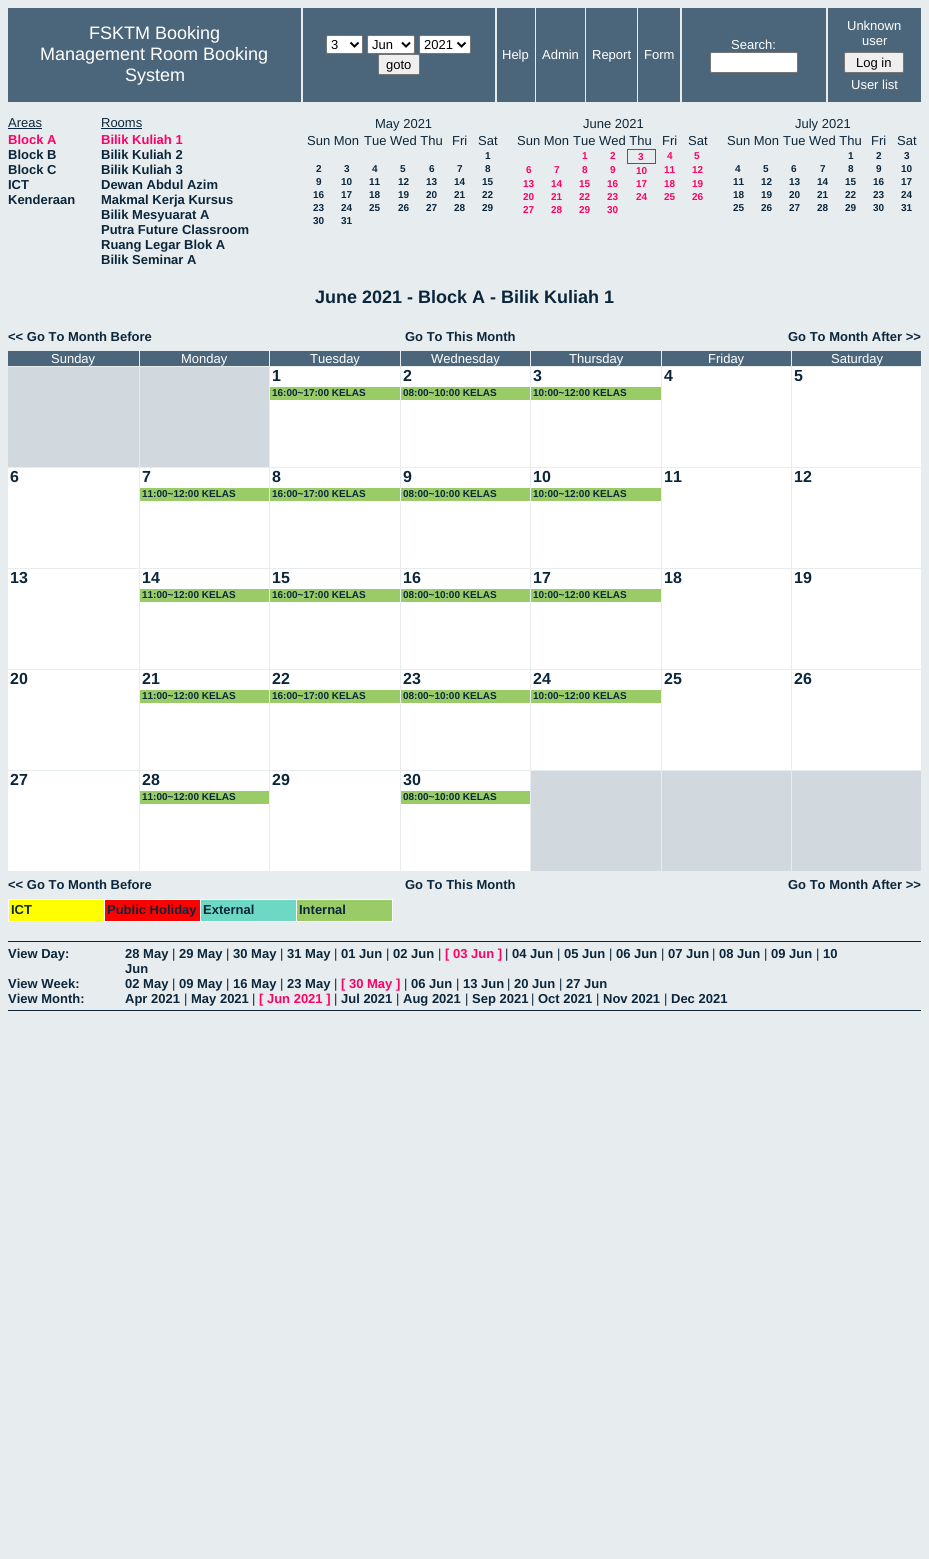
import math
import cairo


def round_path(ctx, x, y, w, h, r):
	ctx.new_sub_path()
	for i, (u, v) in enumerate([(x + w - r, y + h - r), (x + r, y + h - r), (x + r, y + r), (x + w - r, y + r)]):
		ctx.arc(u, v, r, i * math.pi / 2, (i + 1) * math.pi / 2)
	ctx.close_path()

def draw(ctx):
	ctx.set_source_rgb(0.906, 0.922, 0.933)
	ctx.paint()
	ctx.set_source_rgb(0.294, 0.4, 0.482)
	ctx.rectangle(8, 8, 293, 94)
	ctx.fill()
	ctx.select_font_face('Liberation Sans')
	ctx.set_font_size(18)
	ctx.set_source_rgb(1, 1, 1)
	for x, y, s in [
		(89, 39, 'FSKTM Booking'),
		(40, 60, 'Management Room Booking'),
		(125, 81, 'System'),
	]:
		ctx.move_to(x, y)
		ctx.show_text(s)
	ctx.set_source_rgb(0.294, 0.4, 0.482)
	ctx.rectangle(303, 8, 192, 94)
	ctx.fill()
	ctx.set_source_rgb(1, 1, 1)
	round_path(ctx, 326.5, 35.5, 36, 18, 1.5)
	ctx.fill_preserve()
	ctx.set_source_rgb(0.463, 0.463, 0.463)
	ctx.set_line_width(1)
	ctx.stroke()
	ctx.new_path()
	ctx.move_to(350.5, 42.5)
	ctx.line_to(354.5, 46.5)
	ctx.line_to(358.5, 42.5)
	ctx.set_source_rgb(0, 0, 0)
	ctx.set_line_width(2)
	ctx.stroke()
	ctx.set_font_size(13)
	ctx.move_to(331, 49)
	ctx.show_text('3')
	ctx.set_source_rgb(1, 1, 1)
	round_path(ctx, 367.5, 35.5, 47, 18, 1.5)
	ctx.fill_preserve()
	ctx.set_source_rgb(0.463, 0.463, 0.463)
	ctx.set_line_width(1)
	ctx.stroke()
	ctx.new_path()
	ctx.move_to(402, 42.5)
	ctx.line_to(406, 46.5)
	ctx.line_to(410, 42.5)
	ctx.set_source_rgb(0, 0, 0)
	ctx.set_line_width(2)
	ctx.stroke()
	ctx.move_to(372, 49)
	ctx.show_text('Jun')
	ctx.set_source_rgb(1, 1, 1)
	round_path(ctx, 419.5, 35.5, 51, 18, 1.5)
	ctx.fill_preserve()
	ctx.set_source_rgb(0.463, 0.463, 0.463)
	ctx.set_line_width(1)
	ctx.stroke()
	ctx.new_path()
	ctx.move_to(457.5, 42.5)
	ctx.line_to(461.5, 46.5)
	ctx.line_to(465.5, 42.5)
	ctx.set_source_rgb(0, 0, 0)
	ctx.set_line_width(2)
	ctx.stroke()
	ctx.move_to(424, 49)
	ctx.show_text('2021')
	ctx.set_source_rgb(0.937, 0.937, 0.937)
	round_path(ctx, 378.5, 54.5, 41, 20, 1.5)
	ctx.fill_preserve()
	ctx.set_source_rgb(0.463, 0.463, 0.463)
	ctx.set_line_width(1)
	ctx.stroke()
	ctx.set_source_rgb(0, 0, 0)
	ctx.move_to(386, 69)
	ctx.show_text('goto')
	ctx.set_source_rgb(0.294, 0.4, 0.482)
	ctx.rectangle(682, 8, 144, 94)
	ctx.fill()
	ctx.set_source_rgb(1, 1, 1)
	ctx.move_to(731, 49)
	ctx.show_text('Search:')
	round_path(ctx, 710.5, 52.5, 87, 20, 1.5)
	ctx.fill_preserve()
	ctx.set_source_rgb(0.463, 0.463, 0.463)
	ctx.stroke()
	ctx.set_source_rgb(0.294, 0.4, 0.482)
	ctx.rectangle(828, 8, 93, 94)
	ctx.fill()
	ctx.set_source_rgb(1, 1, 1)
	ctx.move_to(847, 30)
	ctx.show_text('Unknown')
	ctx.move_to(862, 45)
	ctx.show_text('user')
	ctx.set_source_rgb(0.937, 0.937, 0.937)
	round_path(ctx, 844.5, 52.5, 59, 20, 1.5)
	ctx.fill_preserve()
	ctx.set_source_rgb(0.463, 0.463, 0.463)
	ctx.stroke()
	ctx.set_source_rgb(0, 0, 0)
	ctx.move_to(856, 67)
	ctx.show_text('Log in')
	ctx.set_source_rgb(1, 1, 1)
	ctx.move_to(851, 89)
	ctx.show_text('User list')
	ctx.set_source_rgb(0.294, 0.4, 0.482)
	ctx.rectangle(497, 8, 38, 94)
	ctx.fill()
	ctx.set_source_rgb(1, 1, 1)
	ctx.move_to(502, 59)
	ctx.show_text('Help')
	ctx.set_source_rgb(0.294, 0.4, 0.482)
	ctx.rectangle(536, 8, 49, 94)
	ctx.fill()
	ctx.set_source_rgb(1, 1, 1)
	ctx.move_to(542, 59)
	ctx.show_text('Admin')
	ctx.set_source_rgb(0.294, 0.4, 0.482)
	ctx.rectangle(586, 8, 51, 94)
	ctx.fill()
	ctx.set_source_rgb(1, 1, 1)
	ctx.move_to(592, 59)
	ctx.show_text('Report')
	ctx.set_source_rgb(0.294, 0.4, 0.482)
	ctx.rectangle(638, 8, 42, 94)
	ctx.fill()
	ctx.set_source_rgb(1, 1, 1)
	ctx.move_to(644, 59)
	ctx.show_text('Form')
	ctx.set_source_rgb(0.043, 0.149, 0.231)
	ctx.move_to(8, 127)
	ctx.show_text('Areas')
	ctx.rectangle(8, 128, 34, 1)
	ctx.fill()
	ctx.select_font_face('Liberation Sans', cairo.FONT_SLANT_NORMAL, cairo.FONT_WEIGHT_BOLD)
	ctx.set_source_rgb(1, 0, 0.4)
	ctx.move_to(8, 144)
	ctx.show_text('Block A')
	ctx.set_source_rgb(0.043, 0.149, 0.231)
	for x, y, s in [
		(8, 159, 'Block B'),
		(8, 174, 'Block C'),
		(8, 189, 'ICT'),
		(8, 204, 'Kenderaan'),
	]:
		ctx.move_to(x, y)
		ctx.show_text(s)
	ctx.select_font_face('Liberation Sans')
	ctx.move_to(101, 127)
	ctx.show_text('Rooms')
	ctx.rectangle(101, 128, 41, 1)
	ctx.fill()
	ctx.select_font_face('Liberation Sans', cairo.FONT_SLANT_NORMAL, cairo.FONT_WEIGHT_BOLD)
	ctx.set_source_rgb(1, 0, 0.4)
	ctx.move_to(101, 144)
	ctx.show_text('Bilik Kuliah 1')
	ctx.set_source_rgb(0.043, 0.149, 0.231)
	for x, y, s in [
		(101, 159, 'Bilik Kuliah 2'),
		(101, 174, 'Bilik Kuliah 3'),
		(101, 189, 'Dewan Abdul Azim'),
		(101, 204, 'Makmal Kerja Kursus'),
		(101, 219, 'Bilik Mesyuarat A'),
		(101, 234, 'Putra Future Classroom'),
		(101, 249, 'Ruang Legar Blok A'),
		(101, 264, 'Bilik Seminar A'),
	]:
		ctx.move_to(x, y)
		ctx.show_text(s)
	ctx.select_font_face('Liberation Sans')
	for x, y, s in [
		(375, 128, 'May 2021'),
		(307, 145, 'Sun Mon'),
		(364, 145, 'Tue Wed Thu'),
		(452, 145, 'Fri'),
		(478, 145, 'Sat'),
	]:
		ctx.move_to(x, y)
		ctx.show_text(s)
	ctx.select_font_face('Liberation Sans', cairo.FONT_SLANT_NORMAL, cairo.FONT_WEIGHT_BOLD)
	ctx.set_font_size(10)
	for x, y, s in [
		(485, 159, '1'),
		(316, 172, '2'),
		(344, 172, '3'),
		(372, 172, '4'),
		(400, 172, '5'),
		(429, 172, '6'),
		(457, 172, '7'),
		(485, 172, '8'),
		(316, 185, '9'),
		(341, 185, '10'),
		(369, 185, '11'),
		(398, 185, '12'),
		(426, 185, '13'),
		(454, 185, '14'),
		(482, 185, '15'),
		(313, 198, '16'),
		(341, 198, '17'),
		(369, 198, '18'),
		(398, 198, '19'),
		(426, 198, '20'),
		(454, 198, '21'),
		(482, 198, '22'),
		(313, 211, '23'),
		(341, 211, '24'),
		(369, 211, '25'),
		(398, 211, '26'),
		(426, 211, '27'),
		(454, 211, '28'),
		(482, 211, '29'),
		(313, 224, '30'),
		(341, 224, '31'),
	]:
		ctx.move_to(x, y)
		ctx.show_text(s)
	ctx.select_font_face('Liberation Sans')
	ctx.set_font_size(13)
	for x, y, s in [
		(583, 128, 'June 2021'),
		(517, 145, 'Sun Mon'),
		(573, 145, 'Tue Wed Thu'),
		(662, 145, 'Fri'),
		(688, 145, 'Sat'),
	]:
		ctx.move_to(x, y)
		ctx.show_text(s)
	ctx.select_font_face('Liberation Sans', cairo.FONT_SLANT_NORMAL, cairo.FONT_WEIGHT_BOLD)
	ctx.set_font_size(10)
	ctx.set_source_rgb(1, 0, 0.4)
	ctx.move_to(582, 159)
	ctx.show_text('1')
	ctx.move_to(610, 159)
	ctx.show_text('2')
	ctx.rectangle(627, 149, 29, 1)
	ctx.rectangle(655, 149, 1, 15)
	ctx.rectangle(627, 163, 29, 1)
	ctx.rectangle(627, 149, 1, 15)
	ctx.fill()
	for x, y, s in [
		(638, 160, '3'),
		(667, 159, '4'),
		(694, 159, '5'),
		(526, 173, '6'),
		(554, 173, '7'),
		(582, 173, '8'),
		(610, 173, '9'),
		(636, 174, '10'),
		(664, 173, '11'),
		(692, 173, '12'),
		(523, 187, '13'),
		(551, 187, '14'),
		(579, 187, '15'),
		(607, 187, '16'),
		(636, 187, '17'),
		(664, 187, '18'),
		(692, 187, '19'),
		(523, 200, '20'),
		(551, 200, '21'),
		(579, 200, '22'),
		(607, 200, '23'),
		(636, 200, '24'),
		(664, 200, '25'),
		(692, 200, '26'),
		(523, 213, '27'),
		(551, 213, '28'),
		(579, 213, '29'),
		(607, 213, '30'),
	]:
		ctx.move_to(x, y)
		ctx.show_text(s)
	ctx.select_font_face('Liberation Sans')
	ctx.set_font_size(13)
	ctx.set_source_rgb(0.043, 0.149, 0.231)
	for x, y, s in [
		(795, 128, 'July 2021'),
		(727, 145, 'Sun Mon'),
		(783, 145, 'Tue Wed Thu'),
		(871, 145, 'Fri'),
		(897, 145, 'Sat'),
	]:
		ctx.move_to(x, y)
		ctx.show_text(s)
	ctx.select_font_face('Liberation Sans', cairo.FONT_SLANT_NORMAL, cairo.FONT_WEIGHT_BOLD)
	ctx.set_font_size(10)
	for x, y, s in [
		(848, 159, '1'),
		(876, 159, '2'),
		(904, 159, '3'),
		(735, 172, '4'),
		(763, 172, '5'),
		(791, 172, '6'),
		(820, 172, '7'),
		(848, 172, '8'),
		(876, 172, '9'),
		(901, 172, '10'),
		(733, 185, '11'),
		(761, 185, '12'),
		(789, 185, '13'),
		(817, 185, '14'),
		(845, 185, '15'),
		(873, 185, '16'),
		(901, 185, '17'),
		(733, 198, '18'),
		(761, 198, '19'),
		(789, 198, '20'),
		(817, 198, '21'),
		(845, 198, '22'),
		(873, 198, '23'),
		(901, 198, '24'),
		(733, 211, '25'),
		(761, 211, '26'),
		(789, 211, '27'),
		(817, 211, '28'),
		(845, 211, '29'),
		(873, 211, '30'),
		(901, 211, '31'),
	]:
		ctx.move_to(x, y)
		ctx.show_text(s)
	ctx.set_font_size(18)
	ctx.move_to(315, 303)
	ctx.show_text('June 2021 - Block A - Bilik Kuliah 1')
	ctx.set_font_size(13)
	for x, y, s in [
		(8, 341, '<< Go To Month Before'),
		(405, 341, 'Go To This Month'),
		(788, 341, 'Go To Month After >>'),
	]:
		ctx.move_to(x, y)
		ctx.show_text(s)
	ctx.set_source_rgb(0.294, 0.4, 0.482)
	ctx.rectangle(8, 351, 131, 15)
	ctx.fill()
	ctx.select_font_face('Liberation Sans')
	ctx.set_source_rgb(1, 1, 1)
	ctx.move_to(51, 363)
	ctx.show_text('Sunday')
	ctx.set_source_rgb(0.294, 0.4, 0.482)
	ctx.rectangle(140, 351, 129, 15)
	ctx.fill()
	ctx.set_source_rgb(1, 1, 1)
	ctx.move_to(181, 363)
	ctx.show_text('Monday')
	ctx.set_source_rgb(0.294, 0.4, 0.482)
	ctx.rectangle(270, 351, 130, 15)
	ctx.fill()
	ctx.set_source_rgb(1, 1, 1)
	ctx.move_to(310, 363)
	ctx.show_text('Tuesday')
	ctx.set_source_rgb(0.294, 0.4, 0.482)
	ctx.rectangle(401, 351, 129, 15)
	ctx.fill()
	ctx.set_source_rgb(1, 1, 1)
	ctx.move_to(431, 363)
	ctx.show_text('Wednesday')
	ctx.set_source_rgb(0.294, 0.4, 0.482)
	ctx.rectangle(531, 351, 130, 15)
	ctx.fill()
	ctx.set_source_rgb(1, 1, 1)
	ctx.move_to(569, 363)
	ctx.show_text('Thursday')
	ctx.set_source_rgb(0.294, 0.4, 0.482)
	ctx.rectangle(662, 351, 129, 15)
	ctx.fill()
	ctx.set_source_rgb(1, 1, 1)
	ctx.move_to(708, 363)
	ctx.show_text('Friday')
	ctx.set_source_rgb(0.294, 0.4, 0.482)
	ctx.rectangle(792, 351, 129, 15)
	ctx.fill()
	ctx.set_source_rgb(1, 1, 1)
	ctx.move_to(831, 363)
	ctx.show_text('Saturday')
	ctx.set_source_rgb(0.82, 0.851, 0.871)
	ctx.rectangle(8, 367, 131, 100)
	ctx.rectangle(140, 367, 129, 100)
	ctx.fill()
	ctx.set_source_rgb(1, 1, 1)
	ctx.rectangle(270, 367, 130, 100)
	ctx.fill()
	ctx.select_font_face('Liberation Sans', cairo.FONT_SLANT_NORMAL, cairo.FONT_WEIGHT_BOLD)
	ctx.set_font_size(16)
	ctx.set_source_rgb(0.043, 0.149, 0.231)
	ctx.move_to(272, 381)
	ctx.show_text('1')
	ctx.set_source_rgb(0.6, 0.8, 0.4)
	ctx.rectangle(270, 387, 130, 13)
	ctx.fill()
	ctx.set_font_size(10)
	ctx.set_source_rgb(0.043, 0.149, 0.231)
	ctx.move_to(272, 396)
	ctx.show_text('16:00~17:00 KELAS')
	ctx.set_source_rgb(1, 1, 1)
	ctx.rectangle(401, 367, 129, 100)
	ctx.fill()
	ctx.set_font_size(16)
	ctx.set_source_rgb(0.043, 0.149, 0.231)
	ctx.move_to(403, 381)
	ctx.show_text('2')
	ctx.set_source_rgb(0.6, 0.8, 0.4)
	ctx.rectangle(401, 387, 129, 13)
	ctx.fill()
	ctx.set_font_size(10)
	ctx.set_source_rgb(0.043, 0.149, 0.231)
	ctx.move_to(403, 396)
	ctx.show_text('08:00~10:00 KELAS')
	ctx.set_source_rgb(1, 1, 1)
	ctx.rectangle(531, 367, 130, 100)
	ctx.fill()
	ctx.set_font_size(16)
	ctx.set_source_rgb(0.043, 0.149, 0.231)
	ctx.move_to(533, 381)
	ctx.show_text('3')
	ctx.set_source_rgb(0.6, 0.8, 0.4)
	ctx.rectangle(531, 387, 130, 13)
	ctx.fill()
	ctx.set_font_size(10)
	ctx.set_source_rgb(0.043, 0.149, 0.231)
	ctx.move_to(533, 396)
	ctx.show_text('10:00~12:00 KELAS')
	ctx.set_source_rgb(1, 1, 1)
	ctx.rectangle(662, 367, 129, 100)
	ctx.fill()
	ctx.set_font_size(16)
	ctx.set_source_rgb(0.043, 0.149, 0.231)
	ctx.move_to(664, 381)
	ctx.show_text('4')
	ctx.set_source_rgb(1, 1, 1)
	ctx.rectangle(792, 367, 129, 100)
	ctx.fill()
	ctx.set_source_rgb(0.043, 0.149, 0.231)
	ctx.move_to(794, 381)
	ctx.show_text('5')
	ctx.set_source_rgb(1, 1, 1)
	ctx.rectangle(8, 468, 131, 100)
	ctx.fill()
	ctx.set_source_rgb(0.043, 0.149, 0.231)
	ctx.move_to(10, 482)
	ctx.show_text('6')
	ctx.set_source_rgb(1, 1, 1)
	ctx.rectangle(140, 468, 129, 100)
	ctx.fill()
	ctx.set_source_rgb(0.043, 0.149, 0.231)
	ctx.move_to(142, 482)
	ctx.show_text('7')
	ctx.set_source_rgb(0.6, 0.8, 0.4)
	ctx.rectangle(140, 488, 129, 13)
	ctx.fill()
	ctx.set_font_size(10)
	ctx.set_source_rgb(0.043, 0.149, 0.231)
	ctx.move_to(142, 497)
	ctx.show_text('11:00~12:00 KELAS')
	ctx.set_source_rgb(1, 1, 1)
	ctx.rectangle(270, 468, 130, 100)
	ctx.fill()
	ctx.set_font_size(16)
	ctx.set_source_rgb(0.043, 0.149, 0.231)
	ctx.move_to(272, 482)
	ctx.show_text('8')
	ctx.set_source_rgb(0.6, 0.8, 0.4)
	ctx.rectangle(270, 488, 130, 13)
	ctx.fill()
	ctx.set_font_size(10)
	ctx.set_source_rgb(0.043, 0.149, 0.231)
	ctx.move_to(272, 497)
	ctx.show_text('16:00~17:00 KELAS')
	ctx.set_source_rgb(1, 1, 1)
	ctx.rectangle(401, 468, 129, 100)
	ctx.fill()
	ctx.set_font_size(16)
	ctx.set_source_rgb(0.043, 0.149, 0.231)
	ctx.move_to(403, 482)
	ctx.show_text('9')
	ctx.set_source_rgb(0.6, 0.8, 0.4)
	ctx.rectangle(401, 488, 129, 13)
	ctx.fill()
	ctx.set_font_size(10)
	ctx.set_source_rgb(0.043, 0.149, 0.231)
	ctx.move_to(403, 497)
	ctx.show_text('08:00~10:00 KELAS')
	ctx.set_source_rgb(1, 1, 1)
	ctx.rectangle(531, 468, 130, 100)
	ctx.fill()
	ctx.set_font_size(16)
	ctx.set_source_rgb(0.043, 0.149, 0.231)
	ctx.move_to(533, 482)
	ctx.show_text('10')
	ctx.set_source_rgb(0.6, 0.8, 0.4)
	ctx.rectangle(531, 488, 130, 13)
	ctx.fill()
	ctx.set_font_size(10)
	ctx.set_source_rgb(0.043, 0.149, 0.231)
	ctx.move_to(533, 497)
	ctx.show_text('10:00~12:00 KELAS')
	ctx.set_source_rgb(1, 1, 1)
	ctx.rectangle(662, 468, 129, 100)
	ctx.fill()
	ctx.set_font_size(16)
	ctx.set_source_rgb(0.043, 0.149, 0.231)
	ctx.move_to(664, 482)
	ctx.show_text('11')
	ctx.set_source_rgb(1, 1, 1)
	ctx.rectangle(792, 468, 129, 100)
	ctx.fill()
	ctx.set_source_rgb(0.043, 0.149, 0.231)
	ctx.move_to(794, 482)
	ctx.show_text('12')
	ctx.set_source_rgb(1, 1, 1)
	ctx.rectangle(8, 569, 131, 100)
	ctx.fill()
	ctx.set_source_rgb(0.043, 0.149, 0.231)
	ctx.move_to(10, 583)
	ctx.show_text('13')
	ctx.set_source_rgb(1, 1, 1)
	ctx.rectangle(140, 569, 129, 100)
	ctx.fill()
	ctx.set_source_rgb(0.043, 0.149, 0.231)
	ctx.move_to(142, 583)
	ctx.show_text('14')
	ctx.set_source_rgb(0.6, 0.8, 0.4)
	ctx.rectangle(140, 589, 129, 13)
	ctx.fill()
	ctx.set_font_size(10)
	ctx.set_source_rgb(0.043, 0.149, 0.231)
	ctx.move_to(142, 598)
	ctx.show_text('11:00~12:00 KELAS')
	ctx.set_source_rgb(1, 1, 1)
	ctx.rectangle(270, 569, 130, 100)
	ctx.fill()
	ctx.set_font_size(16)
	ctx.set_source_rgb(0.043, 0.149, 0.231)
	ctx.move_to(272, 583)
	ctx.show_text('15')
	ctx.set_source_rgb(0.6, 0.8, 0.4)
	ctx.rectangle(270, 589, 130, 13)
	ctx.fill()
	ctx.set_font_size(10)
	ctx.set_source_rgb(0.043, 0.149, 0.231)
	ctx.move_to(272, 598)
	ctx.show_text('16:00~17:00 KELAS')
	ctx.set_source_rgb(1, 1, 1)
	ctx.rectangle(401, 569, 129, 100)
	ctx.fill()
	ctx.set_font_size(16)
	ctx.set_source_rgb(0.043, 0.149, 0.231)
	ctx.move_to(403, 583)
	ctx.show_text('16')
	ctx.set_source_rgb(0.6, 0.8, 0.4)
	ctx.rectangle(401, 589, 129, 13)
	ctx.fill()
	ctx.set_font_size(10)
	ctx.set_source_rgb(0.043, 0.149, 0.231)
	ctx.move_to(403, 598)
	ctx.show_text('08:00~10:00 KELAS')
	ctx.set_source_rgb(1, 1, 1)
	ctx.rectangle(531, 569, 130, 100)
	ctx.fill()
	ctx.set_font_size(16)
	ctx.set_source_rgb(0.043, 0.149, 0.231)
	ctx.move_to(533, 583)
	ctx.show_text('17')
	ctx.set_source_rgb(0.6, 0.8, 0.4)
	ctx.rectangle(531, 589, 130, 13)
	ctx.fill()
	ctx.set_font_size(10)
	ctx.set_source_rgb(0.043, 0.149, 0.231)
	ctx.move_to(533, 598)
	ctx.show_text('10:00~12:00 KELAS')
	ctx.set_source_rgb(1, 1, 1)
	ctx.rectangle(662, 569, 129, 100)
	ctx.fill()
	ctx.set_font_size(16)
	ctx.set_source_rgb(0.043, 0.149, 0.231)
	ctx.move_to(664, 583)
	ctx.show_text('18')
	ctx.set_source_rgb(1, 1, 1)
	ctx.rectangle(792, 569, 129, 100)
	ctx.fill()
	ctx.set_source_rgb(0.043, 0.149, 0.231)
	ctx.move_to(794, 583)
	ctx.show_text('19')
	ctx.set_source_rgb(1, 1, 1)
	ctx.rectangle(8, 670, 131, 100)
	ctx.fill()
	ctx.set_source_rgb(0.043, 0.149, 0.231)
	ctx.move_to(10, 684)
	ctx.show_text('20')
	ctx.set_source_rgb(1, 1, 1)
	ctx.rectangle(140, 670, 129, 100)
	ctx.fill()
	ctx.set_source_rgb(0.043, 0.149, 0.231)
	ctx.move_to(142, 684)
	ctx.show_text('21')
	ctx.set_source_rgb(0.6, 0.8, 0.4)
	ctx.rectangle(140, 690, 129, 13)
	ctx.fill()
	ctx.set_font_size(10)
	ctx.set_source_rgb(0.043, 0.149, 0.231)
	ctx.move_to(142, 699)
	ctx.show_text('11:00~12:00 KELAS')
	ctx.set_source_rgb(1, 1, 1)
	ctx.rectangle(270, 670, 130, 100)
	ctx.fill()
	ctx.set_font_size(16)
	ctx.set_source_rgb(0.043, 0.149, 0.231)
	ctx.move_to(272, 684)
	ctx.show_text('22')
	ctx.set_source_rgb(0.6, 0.8, 0.4)
	ctx.rectangle(270, 690, 130, 13)
	ctx.fill()
	ctx.set_font_size(10)
	ctx.set_source_rgb(0.043, 0.149, 0.231)
	ctx.move_to(272, 699)
	ctx.show_text('16:00~17:00 KELAS')
	ctx.set_source_rgb(1, 1, 1)
	ctx.rectangle(401, 670, 129, 100)
	ctx.fill()
	ctx.set_font_size(16)
	ctx.set_source_rgb(0.043, 0.149, 0.231)
	ctx.move_to(403, 684)
	ctx.show_text('23')
	ctx.set_source_rgb(0.6, 0.8, 0.4)
	ctx.rectangle(401, 690, 129, 13)
	ctx.fill()
	ctx.set_font_size(10)
	ctx.set_source_rgb(0.043, 0.149, 0.231)
	ctx.move_to(403, 699)
	ctx.show_text('08:00~10:00 KELAS')
	ctx.set_source_rgb(1, 1, 1)
	ctx.rectangle(531, 670, 130, 100)
	ctx.fill()
	ctx.set_font_size(16)
	ctx.set_source_rgb(0.043, 0.149, 0.231)
	ctx.move_to(533, 684)
	ctx.show_text('24')
	ctx.set_source_rgb(0.6, 0.8, 0.4)
	ctx.rectangle(531, 690, 130, 13)
	ctx.fill()
	ctx.set_font_size(10)
	ctx.set_source_rgb(0.043, 0.149, 0.231)
	ctx.move_to(533, 699)
	ctx.show_text('10:00~12:00 KELAS')
	ctx.set_source_rgb(1, 1, 1)
	ctx.rectangle(662, 670, 129, 100)
	ctx.fill()
	ctx.set_font_size(16)
	ctx.set_source_rgb(0.043, 0.149, 0.231)
	ctx.move_to(664, 684)
	ctx.show_text('25')
	ctx.set_source_rgb(1, 1, 1)
	ctx.rectangle(792, 670, 129, 100)
	ctx.fill()
	ctx.set_source_rgb(0.043, 0.149, 0.231)
	ctx.move_to(794, 684)
	ctx.show_text('26')
	ctx.set_source_rgb(1, 1, 1)
	ctx.rectangle(8, 771, 131, 100)
	ctx.fill()
	ctx.set_source_rgb(0.043, 0.149, 0.231)
	ctx.move_to(10, 785)
	ctx.show_text('27')
	ctx.set_source_rgb(1, 1, 1)
	ctx.rectangle(140, 771, 129, 100)
	ctx.fill()
	ctx.set_source_rgb(0.043, 0.149, 0.231)
	ctx.move_to(142, 785)
	ctx.show_text('28')
	ctx.set_source_rgb(0.6, 0.8, 0.4)
	ctx.rectangle(140, 791, 129, 13)
	ctx.fill()
	ctx.set_font_size(10)
	ctx.set_source_rgb(0.043, 0.149, 0.231)
	ctx.move_to(142, 800)
	ctx.show_text('11:00~12:00 KELAS')
	ctx.set_source_rgb(1, 1, 1)
	ctx.rectangle(270, 771, 130, 100)
	ctx.fill()
	ctx.set_font_size(16)
	ctx.set_source_rgb(0.043, 0.149, 0.231)
	ctx.move_to(272, 785)
	ctx.show_text('29')
	ctx.set_source_rgb(1, 1, 1)
	ctx.rectangle(401, 771, 129, 100)
	ctx.fill()
	ctx.set_source_rgb(0.043, 0.149, 0.231)
	ctx.move_to(403, 785)
	ctx.show_text('30')
	ctx.set_source_rgb(0.6, 0.8, 0.4)
	ctx.rectangle(401, 791, 129, 13)
	ctx.fill()
	ctx.set_font_size(10)
	ctx.set_source_rgb(0.043, 0.149, 0.231)
	ctx.move_to(403, 800)
	ctx.show_text('08:00~10:00 KELAS')
	ctx.set_source_rgb(0.82, 0.851, 0.871)
	ctx.rectangle(531, 771, 130, 100)
	ctx.rectangle(662, 771, 129, 100)
	ctx.rectangle(792, 771, 129, 100)
	ctx.fill()
	ctx.set_font_size(13)
	ctx.set_source_rgb(0.043, 0.149, 0.231)
	for x, y, s in [
		(8, 889, '<< Go To Month Before'),
		(405, 889, 'Go To This Month'),
		(788, 889, 'Go To Month After >>'),
	]:
		ctx.move_to(x, y)
		ctx.show_text(s)
	ctx.set_source_rgb(1, 1, 0)
	ctx.rectangle(9, 900, 95, 21)
	ctx.fill()
	ctx.set_source_rgb(1, 1, 1)
	ctx.rectangle(296, 899, 97, 1)
	ctx.rectangle(392, 899, 1, 23)
	ctx.rectangle(296, 921, 97, 1)
	ctx.rectangle(296, 899, 1, 23)
	ctx.rectangle(200, 899, 97, 1)
	ctx.rectangle(200, 921, 97, 1)
	ctx.rectangle(200, 899, 1, 23)
	ctx.rectangle(104, 899, 97, 1)
	ctx.rectangle(104, 921, 97, 1)
	ctx.rectangle(104, 899, 1, 23)
	ctx.rectangle(8, 899, 97, 1)
	ctx.rectangle(8, 921, 97, 1)
	ctx.rectangle(8, 899, 1, 23)
	ctx.fill()
	ctx.set_source_rgb(0.043, 0.149, 0.231)
	ctx.move_to(11, 914)
	ctx.show_text('ICT')
	ctx.set_source_rgb(1, 0, 0)
	ctx.rectangle(105, 900, 95, 21)
	ctx.fill()
	ctx.set_source_rgb(0.043, 0.149, 0.231)
	ctx.move_to(107, 914)
	ctx.show_text('Public Holiday')
	ctx.set_source_rgb(0.427, 0.851, 0.769)
	ctx.rectangle(201, 900, 95, 21)
	ctx.fill()
	ctx.set_source_rgb(0.043, 0.149, 0.231)
	ctx.move_to(203, 914)
	ctx.show_text('External')
	ctx.set_source_rgb(0.6, 0.8, 0.4)
	ctx.rectangle(297, 900, 95, 21)
	ctx.fill()
	ctx.set_source_rgb(0.043, 0.149, 0.231)
	ctx.move_to(299, 914)
	ctx.show_text('Internal')
	ctx.rectangle(8, 941, 913, 1)
	ctx.fill()
	ctx.rectangle(8, 1010, 913, 1)
	ctx.fill()
	ctx.move_to(8, 958)
	ctx.show_text('View Day:')
	ctx.move_to(125, 958)
	ctx.show_text('28 May')
	ctx.select_font_face('Liberation Sans')
	ctx.move_to(172, 958)
	ctx.show_text('|')
	ctx.select_font_face('Liberation Sans', cairo.FONT_SLANT_NORMAL, cairo.FONT_WEIGHT_BOLD)
	ctx.move_to(179, 958)
	ctx.show_text('29 May')
	ctx.select_font_face('Liberation Sans')
	ctx.move_to(226, 958)
	ctx.show_text('|')
	ctx.select_font_face('Liberation Sans', cairo.FONT_SLANT_NORMAL, cairo.FONT_WEIGHT_BOLD)
	ctx.move_to(233, 958)
	ctx.show_text('30 May')
	ctx.select_font_face('Liberation Sans')
	ctx.move_to(280, 958)
	ctx.show_text('|')
	ctx.select_font_face('Liberation Sans', cairo.FONT_SLANT_NORMAL, cairo.FONT_WEIGHT_BOLD)
	ctx.move_to(287, 958)
	ctx.show_text('31 May')
	ctx.select_font_face('Liberation Sans')
	ctx.move_to(334, 958)
	ctx.show_text('|')
	ctx.select_font_face('Liberation Sans', cairo.FONT_SLANT_NORMAL, cairo.FONT_WEIGHT_BOLD)
	ctx.move_to(341, 958)
	ctx.show_text('01 Jun')
	ctx.select_font_face('Liberation Sans')
	ctx.move_to(386, 958)
	ctx.show_text('|')
	ctx.select_font_face('Liberation Sans', cairo.FONT_SLANT_NORMAL, cairo.FONT_WEIGHT_BOLD)
	ctx.move_to(393, 958)
	ctx.show_text('02 Jun')
	ctx.select_font_face('Liberation Sans')
	ctx.move_to(438, 958)
	ctx.show_text('|')
	ctx.select_font_face('Liberation Sans', cairo.FONT_SLANT_NORMAL, cairo.FONT_WEIGHT_BOLD)
	ctx.set_source_rgb(1, 0, 0.4)
	ctx.move_to(445, 958)
	ctx.show_text('[ 03 Jun ]')
	ctx.select_font_face('Liberation Sans')
	ctx.set_source_rgb(0.043, 0.149, 0.231)
	ctx.move_to(505, 958)
	ctx.show_text('|')
	ctx.select_font_face('Liberation Sans', cairo.FONT_SLANT_NORMAL, cairo.FONT_WEIGHT_BOLD)
	ctx.move_to(512, 958)
	ctx.show_text('04 Jun')
	ctx.select_font_face('Liberation Sans')
	ctx.move_to(557, 958)
	ctx.show_text('|')
	ctx.select_font_face('Liberation Sans', cairo.FONT_SLANT_NORMAL, cairo.FONT_WEIGHT_BOLD)
	ctx.move_to(564, 958)
	ctx.show_text('05 Jun')
	ctx.select_font_face('Liberation Sans')
	ctx.move_to(609, 958)
	ctx.show_text('|')
	ctx.select_font_face('Liberation Sans', cairo.FONT_SLANT_NORMAL, cairo.FONT_WEIGHT_BOLD)
	ctx.move_to(616, 958)
	ctx.show_text('06 Jun')
	ctx.select_font_face('Liberation Sans')
	ctx.move_to(661, 958)
	ctx.show_text('|')
	ctx.select_font_face('Liberation Sans', cairo.FONT_SLANT_NORMAL, cairo.FONT_WEIGHT_BOLD)
	ctx.move_to(668, 958)
	ctx.show_text('07 Jun')
	ctx.select_font_face('Liberation Sans')
	ctx.move_to(712, 958)
	ctx.show_text('|')
	ctx.select_font_face('Liberation Sans', cairo.FONT_SLANT_NORMAL, cairo.FONT_WEIGHT_BOLD)
	ctx.move_to(719, 958)
	ctx.show_text('08 Jun')
	ctx.select_font_face('Liberation Sans')
	ctx.move_to(764, 958)
	ctx.show_text('|')
	ctx.select_font_face('Liberation Sans', cairo.FONT_SLANT_NORMAL, cairo.FONT_WEIGHT_BOLD)
	ctx.move_to(771, 958)
	ctx.show_text('09 Jun')
	ctx.select_font_face('Liberation Sans')
	ctx.move_to(816, 958)
	ctx.show_text('|')
	ctx.select_font_face('Liberation Sans', cairo.FONT_SLANT_NORMAL, cairo.FONT_WEIGHT_BOLD)
	for x, y, s in [
		(823, 958, '10'),
		(125, 973, 'Jun'),
		(8, 988, 'View Week:'),
		(125, 988, '02 May'),
	]:
		ctx.move_to(x, y)
		ctx.show_text(s)
	ctx.select_font_face('Liberation Sans')
	ctx.move_to(172, 988)
	ctx.show_text('|')
	ctx.select_font_face('Liberation Sans', cairo.FONT_SLANT_NORMAL, cairo.FONT_WEIGHT_BOLD)
	ctx.move_to(179, 988)
	ctx.show_text('09 May')
	ctx.select_font_face('Liberation Sans')
	ctx.move_to(226, 988)
	ctx.show_text('|')
	ctx.select_font_face('Liberation Sans', cairo.FONT_SLANT_NORMAL, cairo.FONT_WEIGHT_BOLD)
	ctx.move_to(233, 988)
	ctx.show_text('16 May')
	ctx.select_font_face('Liberation Sans')
	ctx.move_to(280, 988)
	ctx.show_text('|')
	ctx.select_font_face('Liberation Sans', cairo.FONT_SLANT_NORMAL, cairo.FONT_WEIGHT_BOLD)
	ctx.move_to(287, 988)
	ctx.show_text('23 May')
	ctx.select_font_face('Liberation Sans')
	ctx.move_to(334, 988)
	ctx.show_text('|')
	ctx.select_font_face('Liberation Sans', cairo.FONT_SLANT_NORMAL, cairo.FONT_WEIGHT_BOLD)
	ctx.set_source_rgb(1, 0, 0.4)
	ctx.move_to(341, 988)
	ctx.show_text('[ 30 May ]')
	ctx.select_font_face('Liberation Sans')
	ctx.set_source_rgb(0.043, 0.149, 0.231)
	ctx.move_to(404, 988)
	ctx.show_text('|')
	ctx.select_font_face('Liberation Sans', cairo.FONT_SLANT_NORMAL, cairo.FONT_WEIGHT_BOLD)
	ctx.move_to(411, 988)
	ctx.show_text('06 Jun')
	ctx.select_font_face('Liberation Sans')
	ctx.move_to(456, 988)
	ctx.show_text('|')
	ctx.select_font_face('Liberation Sans', cairo.FONT_SLANT_NORMAL, cairo.FONT_WEIGHT_BOLD)
	ctx.move_to(463, 988)
	ctx.show_text('13 Jun')
	ctx.select_font_face('Liberation Sans')
	ctx.move_to(507, 988)
	ctx.show_text('|')
	ctx.select_font_face('Liberation Sans', cairo.FONT_SLANT_NORMAL, cairo.FONT_WEIGHT_BOLD)
	ctx.move_to(514, 988)
	ctx.show_text('20 Jun')
	ctx.select_font_face('Liberation Sans')
	ctx.move_to(559, 988)
	ctx.show_text('|')
	ctx.select_font_face('Liberation Sans', cairo.FONT_SLANT_NORMAL, cairo.FONT_WEIGHT_BOLD)
	for x, y, s in [
		(566, 988, '27 Jun'),
		(8, 1003, 'View Month:'),
		(125, 1003, 'Apr 2021'),
	]:
		ctx.move_to(x, y)
		ctx.show_text(s)
	ctx.select_font_face('Liberation Sans')
	ctx.move_to(184, 1003)
	ctx.show_text('|')
	ctx.select_font_face('Liberation Sans', cairo.FONT_SLANT_NORMAL, cairo.FONT_WEIGHT_BOLD)
	ctx.move_to(191, 1003)
	ctx.show_text('May 2021')
	ctx.select_font_face('Liberation Sans')
	ctx.move_to(252, 1003)
	ctx.show_text('|')
	ctx.select_font_face('Liberation Sans', cairo.FONT_SLANT_NORMAL, cairo.FONT_WEIGHT_BOLD)
	ctx.set_source_rgb(1, 0, 0.4)
	ctx.move_to(259, 1003)
	ctx.show_text('[ Jun 2021 ]')
	ctx.select_font_face('Liberation Sans')
	ctx.set_source_rgb(0.043, 0.149, 0.231)
	ctx.move_to(334, 1003)
	ctx.show_text('|')
	ctx.select_font_face('Liberation Sans', cairo.FONT_SLANT_NORMAL, cairo.FONT_WEIGHT_BOLD)
	ctx.move_to(341, 1003)
	ctx.show_text('Jul 2021')
	ctx.select_font_face('Liberation Sans')
	ctx.move_to(396, 1003)
	ctx.show_text('|')
	ctx.select_font_face('Liberation Sans', cairo.FONT_SLANT_NORMAL, cairo.FONT_WEIGHT_BOLD)
	ctx.move_to(403, 1003)
	ctx.show_text('Aug 2021')
	ctx.select_font_face('Liberation Sans')
	ctx.move_to(465, 1003)
	ctx.show_text('|')
	ctx.select_font_face('Liberation Sans', cairo.FONT_SLANT_NORMAL, cairo.FONT_WEIGHT_BOLD)
	ctx.move_to(472, 1003)
	ctx.show_text('Sep 2021')
	ctx.select_font_face('Liberation Sans')
	ctx.move_to(531, 1003)
	ctx.show_text('|')
	ctx.select_font_face('Liberation Sans', cairo.FONT_SLANT_NORMAL, cairo.FONT_WEIGHT_BOLD)
	ctx.move_to(538, 1003)
	ctx.show_text('Oct 2021')
	ctx.select_font_face('Liberation Sans')
	ctx.move_to(596, 1003)
	ctx.show_text('|')
	ctx.select_font_face('Liberation Sans', cairo.FONT_SLANT_NORMAL, cairo.FONT_WEIGHT_BOLD)
	ctx.move_to(603, 1003)
	ctx.show_text('Nov 2021')
	ctx.select_font_face('Liberation Sans')
	ctx.move_to(664, 1003)
	ctx.show_text('|')
	ctx.select_font_face('Liberation Sans', cairo.FONT_SLANT_NORMAL, cairo.FONT_WEIGHT_BOLD)
	ctx.move_to(671, 1003)
	ctx.show_text('Dec 2021')


surface = cairo.ImageSurface(cairo.FORMAT_RGB24, 929, 1559)
ctx = cairo.Context(surface)
options = cairo.FontOptions()
options.set_hint_metrics(cairo.HINT_METRICS_OFF)
options.set_hint_style(cairo.HINT_STYLE_NONE)
ctx.set_font_options(options)
ctx.set_miter_limit(4)
draw(ctx)
surface.write_to_png('image.png')
